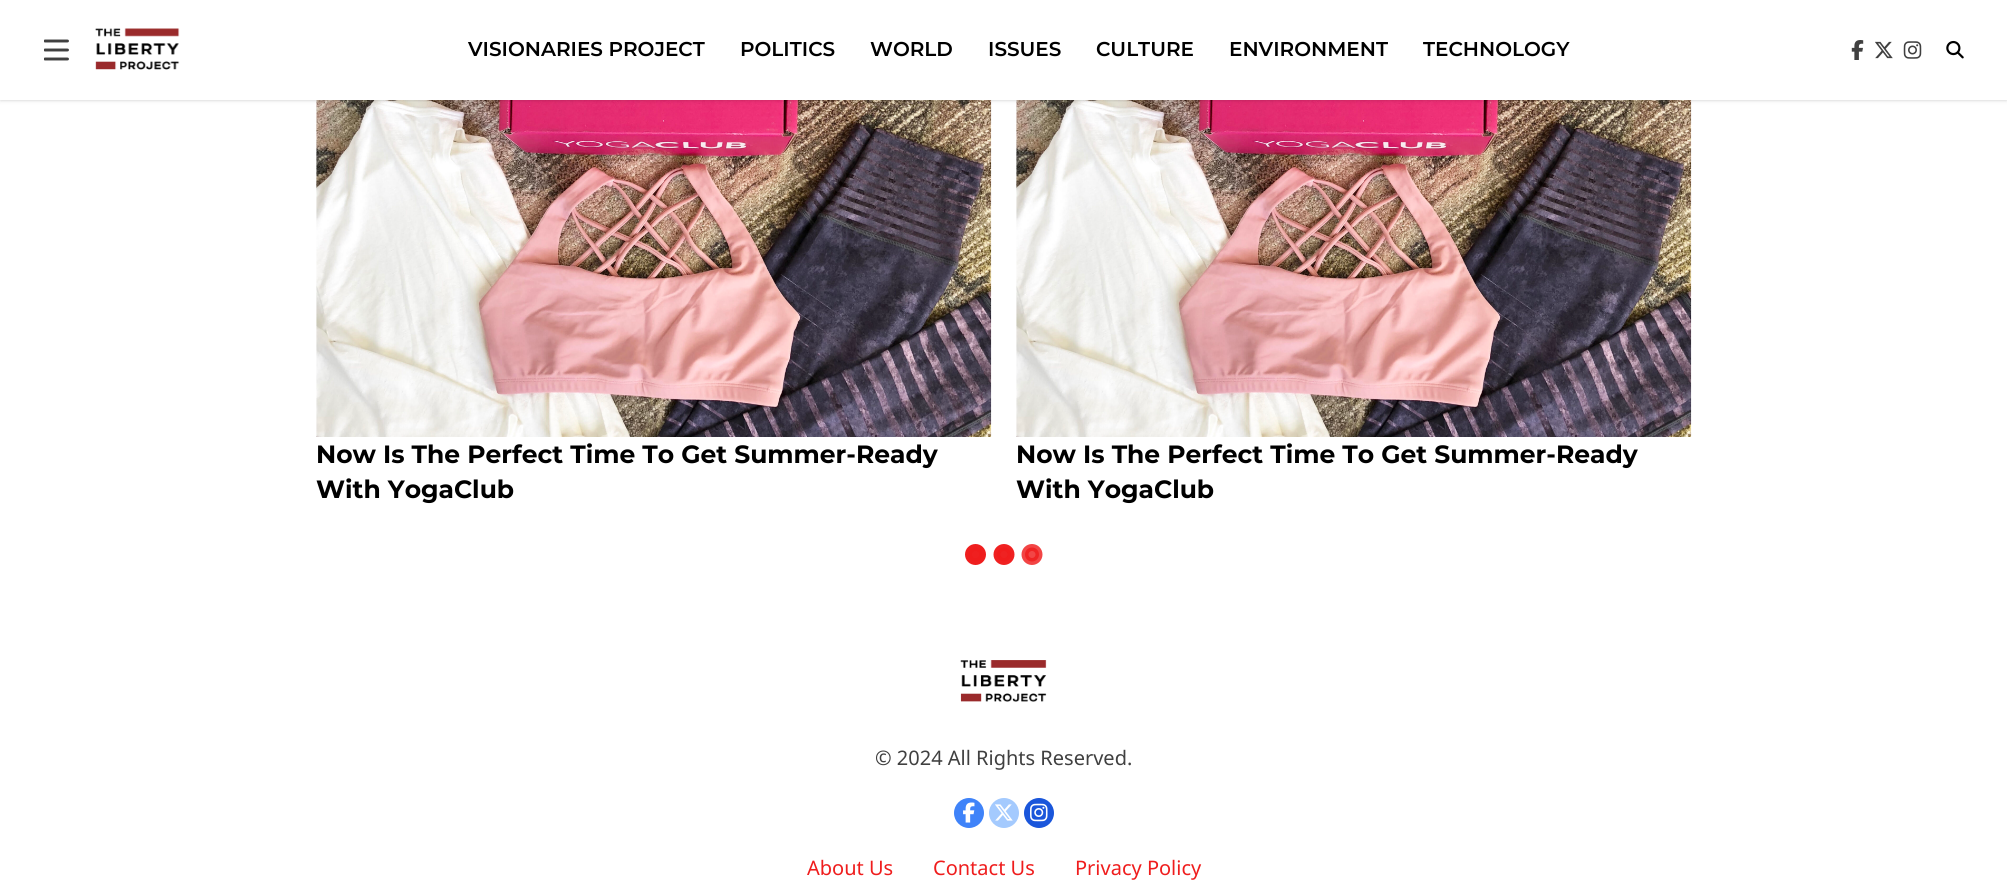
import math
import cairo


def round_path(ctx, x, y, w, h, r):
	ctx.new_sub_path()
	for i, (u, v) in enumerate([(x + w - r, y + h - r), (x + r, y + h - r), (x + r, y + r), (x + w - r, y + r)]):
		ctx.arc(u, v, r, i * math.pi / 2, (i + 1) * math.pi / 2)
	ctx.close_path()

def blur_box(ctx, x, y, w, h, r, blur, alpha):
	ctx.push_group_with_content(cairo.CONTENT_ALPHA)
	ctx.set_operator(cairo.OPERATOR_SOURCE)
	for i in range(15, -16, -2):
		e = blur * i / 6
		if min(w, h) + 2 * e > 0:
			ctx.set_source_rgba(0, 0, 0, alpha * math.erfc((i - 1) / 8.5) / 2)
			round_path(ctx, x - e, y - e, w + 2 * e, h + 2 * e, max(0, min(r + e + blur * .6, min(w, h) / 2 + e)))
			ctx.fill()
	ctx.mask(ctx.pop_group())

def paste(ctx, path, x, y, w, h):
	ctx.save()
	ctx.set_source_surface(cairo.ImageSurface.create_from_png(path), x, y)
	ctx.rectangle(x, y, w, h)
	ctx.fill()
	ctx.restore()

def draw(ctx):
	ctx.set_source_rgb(1, 1, 1)
	ctx.paint()
	paste(ctx, 'media/6.png', 316, 100, 676, 337)
	paste(ctx, 'media/6.png', 1016, 100, 676, 337)
	ctx.set_source_rgb(0, 0, 0)
	blur_box(ctx, 1, 3, 2005, 97, 0, 1, 0.1)
	blur_box(ctx, 0, 1, 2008, 100, 0, 2, 0.1)
	ctx.set_source_rgb(1, 1, 1)
	ctx.rectangle(0, 0, 2007, 100)
	ctx.fill()
	ctx.save()
	ctx.rectangle(44, 38, 25, 25)
	ctx.clip()
	ctx.new_path()
	ctx.move_to(45, 41)
	ctx.line_to(67.5, 41)
	ctx.move_to(45, 50)
	ctx.line_to(67.5, 50)
	ctx.move_to(45, 59)
	ctx.line_to(67.5, 59)
	ctx.set_source_rgb(0.251, 0.251, 0.251)
	ctx.set_line_width(2.9)
	ctx.set_line_cap(cairo.LINE_CAP_ROUND)
	ctx.set_line_join(cairo.LINE_JOIN_ROUND)
	ctx.stroke()
	ctx.restore()
	paste(ctx, 'media/1.png', 95, 28, 85, 42)
	ctx.select_font_face('Montserrat SemiBold')
	ctx.set_font_size(20)
	ctx.set_source_rgb(0, 0, 0)
	for x, y, s in [
		(468, 56, 'VISIONARIES PROJECT'),
		(740, 56, 'POLITICS'),
		(870, 56, 'WORLD'),
		(988, 56, 'ISSUES'),
		(1096, 56, 'CULTURE'),
		(1229, 56, 'ENVIRONMENT'),
		(1423, 56, 'TECHNOLOGY'),
	]:
		ctx.move_to(x, y)
		ctx.show_text(s)
	paste(ctx, 'media/2.png', 1851, 40, 13, 20)
	paste(ctx, 'media/3.png', 1875, 41, 18, 18)
	paste(ctx, 'media/4.png', 1903, 41, 19, 18)
	paste(ctx, 'media/5.png', 1946, 40, 18, 19)
	ctx.select_font_face('Montserrat', cairo.FONT_SLANT_NORMAL, cairo.FONT_WEIGHT_BOLD)
	ctx.set_font_size(25)
	for x, y, s in [
		(316, 463, 'Now Is The Perfect Time To Get Summer-Ready'),
		(316, 498, 'With YogaClub'),
		(1016, 463, 'Now Is The Perfect Time To Get Summer-Ready'),
		(1016, 498, 'With YogaClub'),
	]:
		ctx.move_to(x, y)
		ctx.show_text(s)
	ctx.set_source_rgb(0.937, 0.122, 0.122)
	ctx.new_path()
	ctx.arc(975.5, 554.5, 7, 0, 2 * math.pi)
	ctx.fill_preserve()
	ctx.set_source_rgba(0.937, 0.114, 0.114, 0.99)
	ctx.set_line_width(7)
	ctx.stroke()
	ctx.set_source_rgb(0.937, 0.133, 0.133)
	ctx.arc(1004, 554.5, 7, 0, 2 * math.pi)
	ctx.fill_preserve()
	ctx.set_source_rgba(0.937, 0.114, 0.114, 0.98)
	ctx.stroke()
	ctx.set_source_rgb(0.949, 0.275, 0.275)
	ctx.arc(1032, 554.5, 7, 0, 2 * math.pi)
	ctx.fill_preserve()
	ctx.set_source_rgba(0.937, 0.114, 0.114, 0.82)
	ctx.stroke()
	paste(ctx, 'media/7.png', 960, 660, 87, 42)
	ctx.select_font_face('Noto Sans')
	ctx.set_font_size(20)
	ctx.set_source_rgb(0.251, 0.251, 0.251)
	ctx.move_to(875, 765)
	ctx.show_text('© 2024 All Rights Reserved.')
	ctx.set_source_rgb(0.247, 0.514, 0.973)
	ctx.new_path()
	ctx.arc(969, 813, 15, 0, 2 * math.pi)
	ctx.fill()
	paste(ctx, 'media/8.png', 963, 802, 12, 21)
	ctx.set_source_rgb(0.643, 0.792, 0.996)
	ctx.arc(1004, 813, 15, 0, 2 * math.pi)
	ctx.fill()
	paste(ctx, 'media/9.png', 995, 804, 18, 17)
	ctx.set_source_rgb(0.102, 0.337, 0.859)
	ctx.arc(1039, 813, 15, 0, 2 * math.pi)
	ctx.fill()
	paste(ctx, 'media/10.png', 1030, 803, 18, 19)
	ctx.set_source_rgb(0.937, 0.114, 0.114)
	for x, y, s in [
		(807, 875, 'About Us'),
		(933, 875, 'Contact Us'),
		(1075, 875, 'Privacy Policy'),
	]:
		ctx.move_to(x, y)
		ctx.show_text(s)


surface = cairo.ImageSurface(cairo.FORMAT_RGB24, 2007, 891)
ctx = cairo.Context(surface)
options = cairo.FontOptions()
options.set_hint_metrics(cairo.HINT_METRICS_OFF)
options.set_hint_style(cairo.HINT_STYLE_NONE)
ctx.set_font_options(options)
ctx.set_miter_limit(4)
draw(ctx)
surface.write_to_png('image.png')
